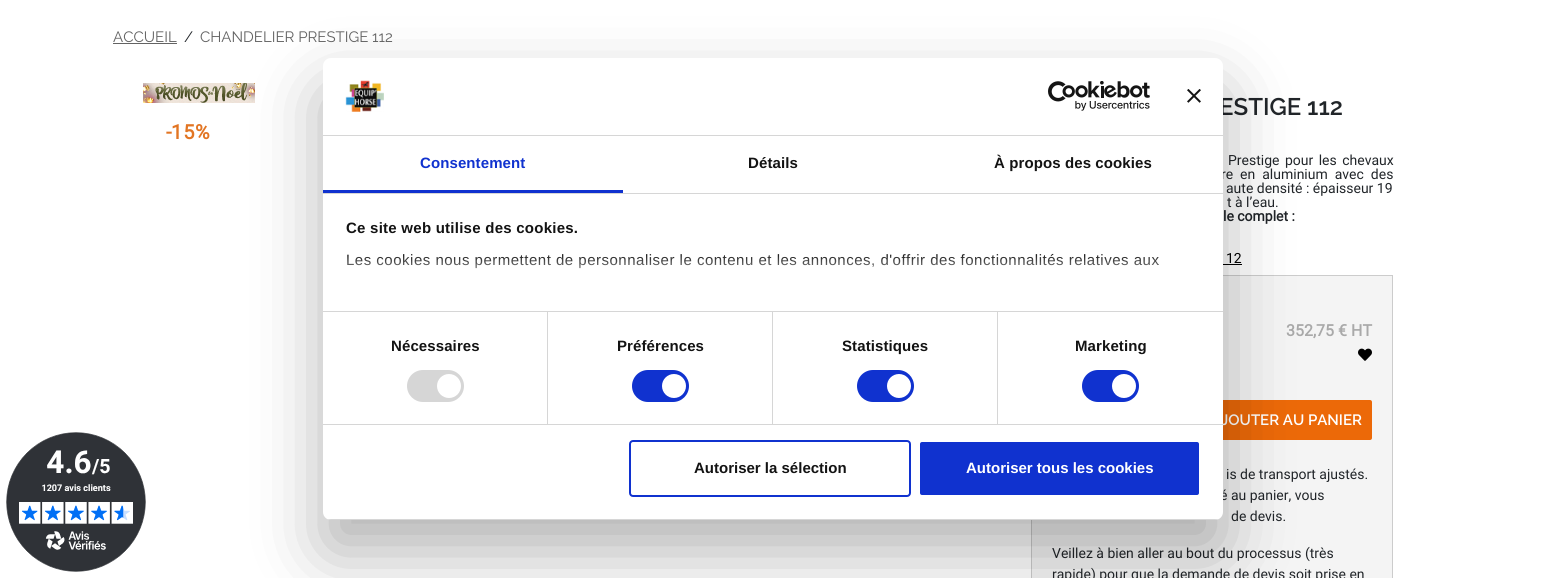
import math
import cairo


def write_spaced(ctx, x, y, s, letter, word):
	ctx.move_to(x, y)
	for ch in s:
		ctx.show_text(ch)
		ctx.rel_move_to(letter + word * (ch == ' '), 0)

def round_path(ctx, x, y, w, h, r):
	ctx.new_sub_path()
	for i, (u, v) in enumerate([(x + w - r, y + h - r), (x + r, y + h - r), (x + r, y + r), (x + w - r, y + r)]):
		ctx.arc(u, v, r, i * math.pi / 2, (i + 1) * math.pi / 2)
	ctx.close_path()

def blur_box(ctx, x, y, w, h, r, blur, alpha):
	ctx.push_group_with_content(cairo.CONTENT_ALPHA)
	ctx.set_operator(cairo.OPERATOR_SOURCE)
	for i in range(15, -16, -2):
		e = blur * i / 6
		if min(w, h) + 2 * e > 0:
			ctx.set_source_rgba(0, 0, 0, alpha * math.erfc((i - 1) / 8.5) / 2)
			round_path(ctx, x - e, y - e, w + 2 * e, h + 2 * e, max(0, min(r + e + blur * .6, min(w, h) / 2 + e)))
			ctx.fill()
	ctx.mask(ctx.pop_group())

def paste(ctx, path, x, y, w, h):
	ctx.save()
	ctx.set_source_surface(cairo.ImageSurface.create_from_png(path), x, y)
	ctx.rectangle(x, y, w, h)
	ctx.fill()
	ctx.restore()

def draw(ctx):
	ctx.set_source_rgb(1, 1, 1)
	ctx.paint()
	ctx.select_font_face('Raleway')
	ctx.set_font_size(15)
	ctx.set_source_rgb(0.388, 0.388, 0.388)
	ctx.move_to(113, 42)
	ctx.show_text('ACCUEIL')
	ctx.rectangle(113, 43, 64, 1)
	ctx.fill()
	ctx.set_source_rgb(0.129, 0.145, 0.161)
	ctx.move_to(184, 42)
	ctx.show_text('/')
	ctx.set_source_rgb(0.388, 0.388, 0.388)
	ctx.move_to(200, 42)
	ctx.show_text('CHANDELIER PRESTIGE 112')
	paste(ctx, 'media/1.png', 143, 83, 112, 20)
	ctx.select_font_face('Roboto', cairo.FONT_SLANT_NORMAL, cairo.FONT_WEIGHT_BOLD)
	ctx.set_font_size(20)
	ctx.set_source_rgb(0.886, 0.459, 0.137)
	for x, y, s in [
		(166, 139, '-'),
		(171, 139, '15'),
		(195, 139, '%'),
	]:
		write_spaced(ctx, x, y, s, 1, 0)
	ctx.select_font_face('Raleway SemiBold')
	ctx.set_font_size(24)
	ctx.set_source_rgb(0.129, 0.145, 0.161)
	ctx.move_to(1219, 115)
	ctx.show_text('ESTIGE 112')
	ctx.select_font_face('Roboto')
	ctx.set_font_size(14)
	write_spaced(ctx, 1228, 165, 'Prestige pour les chevaux', 0, 2)
	write_spaced(ctx, 1221, 179, 're en aluminium avec des', 0, 3.5)
	ctx.move_to(1226, 193)
	ctx.show_text('aute densité : épaisseur 19')
	ctx.move_to(1227, 207)
	ctx.show_text('t à l’eau.')
	ctx.select_font_face('Roboto', cairo.FONT_SLANT_NORMAL, cairo.FONT_WEIGHT_BOLD)
	ctx.move_to(1223, 221)
	ctx.show_text('le complet :')
	ctx.select_font_face('Roboto')
	ctx.set_source_rgb(0, 0, 0)
	ctx.move_to(1226, 263)
	ctx.show_text('12')
	ctx.rectangle(1223, 264, 19, 1)
	ctx.fill()
	ctx.set_source_rgb(0.957, 0.957, 0.957)
	ctx.rectangle(1031.5, 275.5, 361, 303)
	ctx.fill_preserve()
	ctx.set_source_rgb(0.8, 0.8, 0.8)
	ctx.set_line_width(1)
	ctx.stroke()
	ctx.select_font_face('Roboto', cairo.FONT_SLANT_NORMAL, cairo.FONT_WEIGHT_BOLD)
	ctx.set_font_size(16)
	ctx.set_source_rgb(0.663, 0.663, 0.663)
	ctx.move_to(1286, 336)
	ctx.show_text('352,75 € HT')
	paste(ctx, 'media/2.png', 1358, 348, 14, 13)
	ctx.set_source_rgb(0.922, 0.412, 0.035)
	round_path(ctx, 1201, 400, 171, 40, 2)
	ctx.fill()
	ctx.select_font_face('Raleway SemiBold')
	ctx.set_font_size(15)
	ctx.set_source_rgb(1, 1, 1)
	ctx.move_to(1221, 425)
	ctx.show_text('JOUTER AU PANIER')
	ctx.select_font_face('Roboto')
	ctx.set_font_size(14)
	ctx.set_source_rgb(0.129, 0.145, 0.161)
	for x, y, s in [
		(1226, 479, 'is de transport ajustés.'),
		(1220, 500, 'é au panier, vous'),
		(1231, 521, 'de devis.'),
		(1052, 558, 'Veillez à bien aller au bout du processus (très'),
		(1052, 579, 'rapide) pour que la demande de devis soit prise en'),
	]:
		ctx.move_to(x, y)
		ctx.show_text(s)
	ctx.set_source_rgb(0, 0, 0)
	blur_box(ctx, 323, 90, 900, 462, 8, 34, 0.3)
	ctx.set_source_rgb(1, 1, 1)
	round_path(ctx, 323, 58, 900, 462, 8)
	ctx.fill()
	ctx.set_source_rgb(0.839, 0.839, 0.839)
	ctx.rectangle(323, 135, 900, 1)
	ctx.fill()
	paste(ctx, 'media/3.png', 345, 80, 39, 32)
	paste(ctx, 'media/4.png', 1048, 81, 102, 30)
	paste(ctx, 'media/5.png', 1187, 89, 14, 14)
	ctx.rectangle(323, 193, 900, 1)
	ctx.fill()
	ctx.set_source_rgb(0.063, 0.196, 0.812)
	ctx.rectangle(323, 190, 300, 3)
	ctx.fill()
	ctx.select_font_face('Liberation Sans', cairo.FONT_SLANT_NORMAL, cairo.FONT_WEIGHT_BOLD)
	ctx.set_font_size(15)
	write_spaced(ctx, 420, 168, 'Consentement', 0.1, 0)
	ctx.set_source_rgb(0.078, 0.078, 0.078)
	write_spaced(ctx, 748, 168, 'Détails', 0.1, 0)
	write_spaced(ctx, 994, 168, 'À propos des cookies', 0.1, 0)
	ctx.set_source_rgb(0.839, 0.839, 0.839)
	ctx.rectangle(323, 311, 900, 1)
	ctx.fill()
	ctx.set_source_rgb(0.078, 0.078, 0.078)
	write_spaced(ctx, 346, 233, 'Ce site web utilise des cookies.', 0.25, 0)
	ctx.select_font_face('Liberation Sans')
	write_spaced(ctx, 346, 265, 'Les cookies nous permettent de personnaliser le contenu et les annonces, d\'offrir des fonctionnalités relatives aux', 0.5, 0)
	gradient = cairo.LinearGradient(763, 311, 763, 253)
	gradient.add_color_stop_rgba(0, 1, 1, 1, 1)
	gradient.add_color_stop_rgba(0.5, 1, 1, 1, 0.8)
	gradient.add_color_stop_rgba(1, 1, 1, 1, 0)
	ctx.set_source(gradient)
	ctx.rectangle(346, 254, 812, 15)
	ctx.fill()
	ctx.set_source_rgb(0.839, 0.839, 0.839)
	ctx.rectangle(323, 424, 900, 1)
	ctx.fill()
	ctx.rectangle(547, 312, 1, 112)
	ctx.fill()
	ctx.select_font_face('Liberation Sans', cairo.FONT_SLANT_NORMAL, cairo.FONT_WEIGHT_BOLD)
	ctx.set_source_rgb(0.078, 0.078, 0.078)
	write_spaced(ctx, 391, 351, 'Nécessaires', 0.1, 0)
	ctx.set_source_rgb(0.839, 0.839, 0.839)
	round_path(ctx, 407, 370, 57, 32, 16)
	ctx.fill()
	ctx.set_source_rgb(1, 1, 1)
	ctx.arc(449, 386, 12, 0, 2 * math.pi)
	ctx.fill()
	ctx.set_source_rgb(0.839, 0.839, 0.839)
	ctx.rectangle(772, 312, 1, 112)
	ctx.fill()
	ctx.set_source_rgb(0.078, 0.078, 0.078)
	write_spaced(ctx, 617, 351, 'Préférences', 0.1, 0)
	ctx.set_source_rgb(0.063, 0.196, 0.812)
	round_path(ctx, 632, 370, 57, 32, 16)
	ctx.fill()
	ctx.set_source_rgb(1, 1, 1)
	ctx.arc(674, 386, 12, 0, 2 * math.pi)
	ctx.fill()
	ctx.set_source_rgb(0.839, 0.839, 0.839)
	ctx.rectangle(997, 312, 1, 112)
	ctx.fill()
	ctx.set_source_rgb(0.078, 0.078, 0.078)
	write_spaced(ctx, 842, 351, 'Statistiques', 0.1, 0)
	ctx.set_source_rgb(0.063, 0.196, 0.812)
	round_path(ctx, 857, 370, 57, 32, 16)
	ctx.fill()
	ctx.set_source_rgb(1, 1, 1)
	ctx.arc(899, 386, 12, 0, 2 * math.pi)
	ctx.fill()
	ctx.set_source_rgb(0.078, 0.078, 0.078)
	write_spaced(ctx, 1075, 351, 'Marketing', 0.1, 0)
	ctx.set_source_rgb(0.063, 0.196, 0.812)
	round_path(ctx, 1082, 370, 57, 32, 16)
	ctx.fill()
	ctx.set_source_rgb(1, 1, 1)
	ctx.arc(1124, 386, 12, 0, 2 * math.pi)
	ctx.fill()
	ctx.save()
	round_path(ctx, 323, 58, 900, 462, 8)
	ctx.clip()
	ctx.set_source_rgb(0.839, 0.839, 0.839)
	ctx.rectangle(323, 519, 900, 1)
	ctx.fill()
	ctx.restore()
	round_path(ctx, 630, 441, 280, 55, 3)
	ctx.set_source_rgb(0.063, 0.196, 0.812)
	ctx.set_line_width(2)
	ctx.stroke()
	ctx.set_source_rgb(0.078, 0.078, 0.078)
	ctx.move_to(694, 473)
	ctx.show_text('Autoriser la sélection')
	ctx.set_source_rgb(0.063, 0.196, 0.812)
	round_path(ctx, 919, 441, 281, 55, 3)
	ctx.fill_preserve()
	ctx.set_source_rgb(1, 1, 1)
	ctx.stroke()
	ctx.move_to(966, 473)
	ctx.show_text('Autoriser tous les cookies')
	paste(ctx, 'media/6.png', 6, 432, 140, 140)


surface = cairo.ImageSurface(cairo.FORMAT_RGB24, 1546, 578)
ctx = cairo.Context(surface)
options = cairo.FontOptions()
options.set_hint_metrics(cairo.HINT_METRICS_OFF)
options.set_hint_style(cairo.HINT_STYLE_NONE)
ctx.set_font_options(options)
ctx.set_miter_limit(4)
draw(ctx)
surface.write_to_png('image.png')
